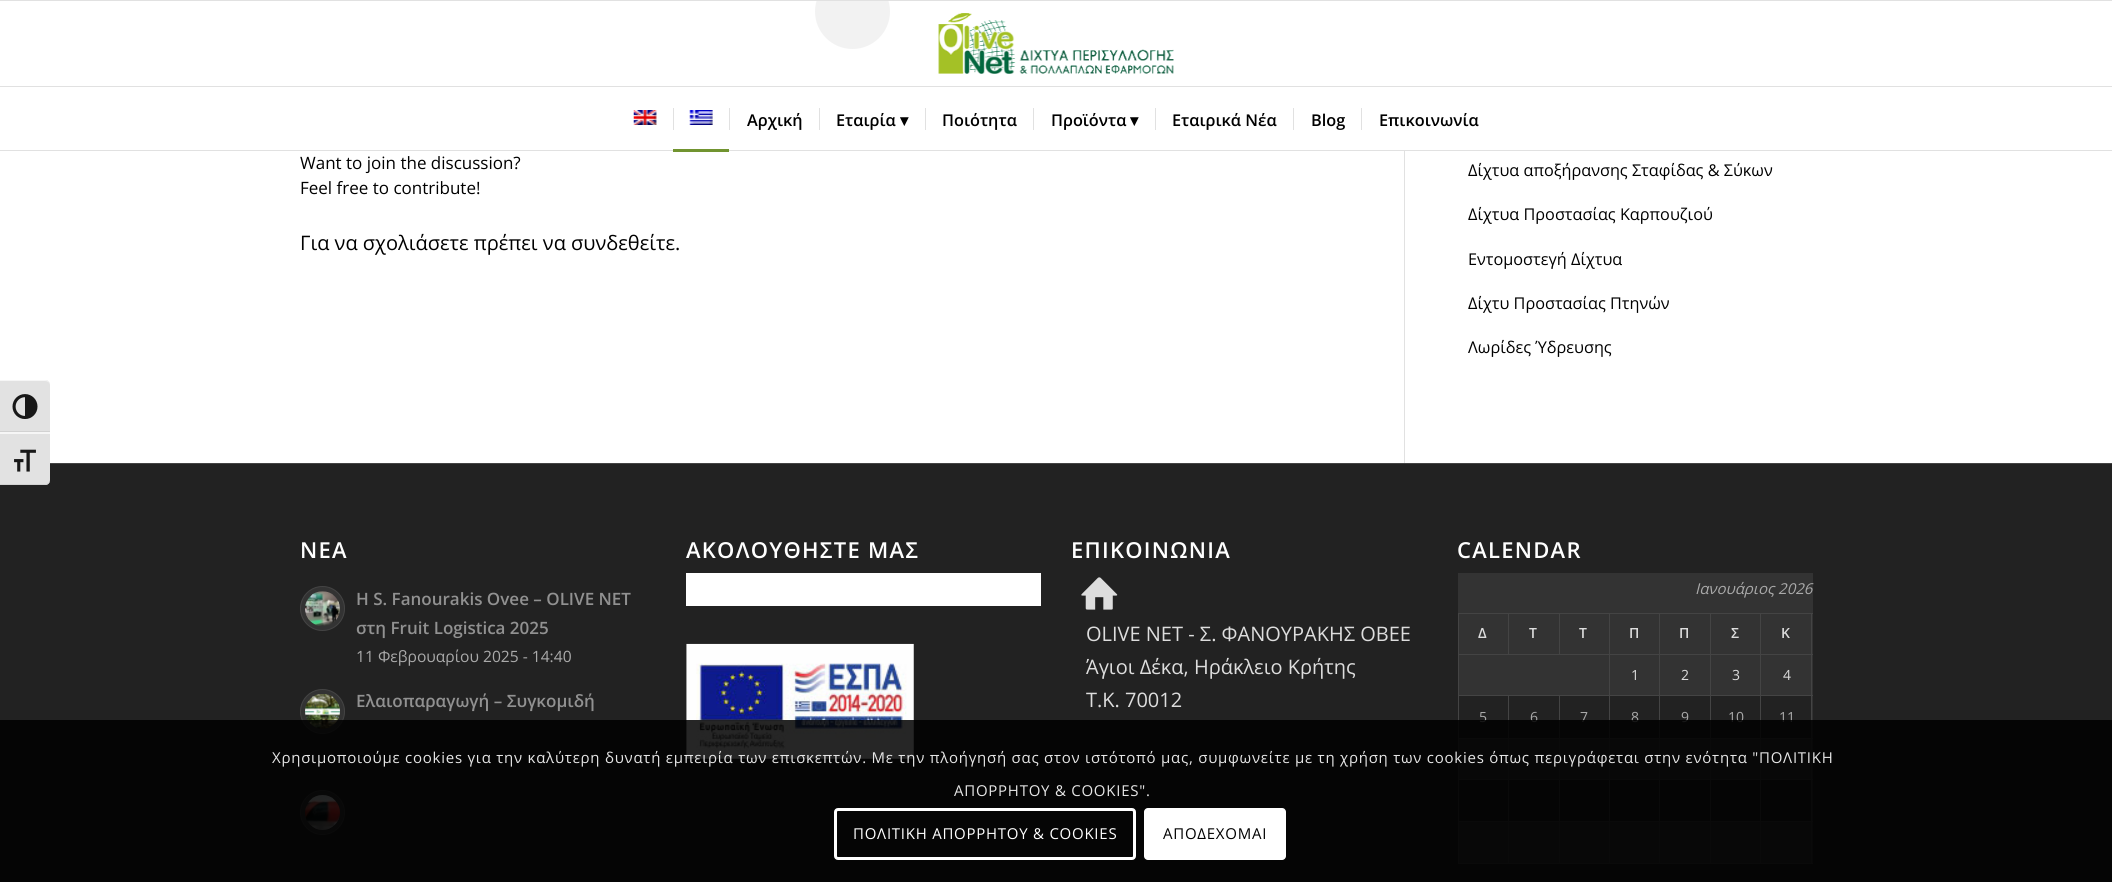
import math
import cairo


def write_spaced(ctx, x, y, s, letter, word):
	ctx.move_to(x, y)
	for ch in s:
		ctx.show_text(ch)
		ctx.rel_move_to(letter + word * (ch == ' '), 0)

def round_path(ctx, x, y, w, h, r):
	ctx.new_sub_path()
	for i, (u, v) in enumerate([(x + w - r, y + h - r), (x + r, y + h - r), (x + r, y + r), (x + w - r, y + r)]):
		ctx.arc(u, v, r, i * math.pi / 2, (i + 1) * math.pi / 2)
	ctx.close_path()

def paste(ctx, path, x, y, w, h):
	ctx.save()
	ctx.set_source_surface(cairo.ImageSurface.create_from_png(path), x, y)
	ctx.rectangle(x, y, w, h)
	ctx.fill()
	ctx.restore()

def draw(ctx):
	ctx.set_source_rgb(1, 1, 1)
	ctx.paint()
	ctx.set_source_rgb(0.886, 0.886, 0.886)
	ctx.new_path()
	ctx.move_to(0, 380)
	ctx.line_to(45, 380)
	ctx.curve_to(48, 380, 50, 382, 50, 385)
	ctx.line_to(50, 433)
	ctx.line_to(0, 433)
	ctx.close_path()
	ctx.fill()
	ctx.set_source_rgb(0.961, 0.961, 0.961)
	ctx.new_path()
	ctx.move_to(0, 380)
	ctx.line_to(0, 381)
	ctx.line_to(45, 381)
	ctx.curve_to(48, 381, 50, 383, 50, 385)
	ctx.curve_to(50, 382, 48, 380, 45, 380)
	ctx.close_path()
	ctx.fill()
	ctx.set_source_rgb(0.824, 0.824, 0.824)
	ctx.rectangle(0, 431, 50, 1)
	ctx.fill()
	paste(ctx, 'media/1.png', 12, 394, 26, 25)
	ctx.set_source_rgb(0.133, 0.133, 0.133)
	ctx.rectangle(0, 464, 2112, 418)
	ctx.fill()
	ctx.set_source_rgb(0.886, 0.886, 0.886)
	ctx.new_path()
	ctx.move_to(0, 433)
	ctx.line_to(50, 433)
	ctx.line_to(50, 480)
	ctx.curve_to(50, 483, 48, 485, 45, 485)
	ctx.line_to(0, 485)
	ctx.close_path()
	ctx.fill()
	ctx.set_source_rgb(0.961, 0.961, 0.961)
	ctx.rectangle(0, 432, 50, 2)
	ctx.fill()
	ctx.set_source_rgb(0.824, 0.824, 0.824)
	ctx.new_path()
	ctx.move_to(0, 484)
	ctx.line_to(0, 485)
	ctx.line_to(45, 485)
	ctx.curve_to(48, 485, 50, 483, 50, 480)
	ctx.curve_to(50, 482, 48, 484, 45, 484)
	ctx.close_path()
	ctx.fill()
	paste(ctx, 'media/2.png', 14, 449, 22, 23)
	ctx.set_source_rgb(0.949, 0.949, 0.949)
	ctx.arc(852.5, 11.5, 37.5, 0, 2 * math.pi)
	ctx.fill()
	ctx.set_source_rgb(0.882, 0.882, 0.882)
	ctx.rectangle(0, 0, 2112, 1)
	ctx.fill()
	ctx.rectangle(0, 150, 2112, 1)
	ctx.fill()
	paste(ctx, 'media/3.png', 938, 13, 236, 61)
	ctx.rectangle(0, 86, 2112, 1)
	ctx.fill()
	paste(ctx, 'media/4.png', 633, 110, 24, 15)
	ctx.rectangle(673, 108, 1, 22)
	ctx.fill()
	paste(ctx, 'media/5.png', 689, 110, 24, 15)
	ctx.set_source_rgb(0.443, 0.58, 0.188)
	ctx.rectangle(673, 149, 56, 3)
	ctx.fill()
	ctx.select_font_face('Open Sans SemiBold')
	ctx.set_font_size(16.25)
	ctx.set_source_rgb(0, 0, 0)
	ctx.move_to(747, 126)
	ctx.show_text('Αρχική')
	ctx.set_source_rgb(0.882, 0.882, 0.882)
	ctx.rectangle(729, 108, 1, 22)
	ctx.fill()
	ctx.set_source_rgb(0, 0, 0)
	ctx.move_to(836, 126)
	ctx.show_text('Εταιρία')
	ctx.set_source_rgb(0.882, 0.882, 0.882)
	ctx.rectangle(819, 108, 1, 22)
	ctx.fill()
	ctx.select_font_face('DejaVu Sans', cairo.FONT_SLANT_NORMAL, cairo.FONT_WEIGHT_BOLD)
	ctx.set_source_rgb(0, 0, 0)
	ctx.move_to(900, 126)
	ctx.show_text('▾')
	ctx.select_font_face('Open Sans SemiBold')
	ctx.move_to(942, 126)
	ctx.show_text('Ποιότητα')
	ctx.set_source_rgb(0.882, 0.882, 0.882)
	ctx.rectangle(925, 108, 1, 22)
	ctx.fill()
	ctx.set_source_rgb(0, 0, 0)
	ctx.move_to(1051, 126)
	ctx.show_text('Προϊόντα')
	ctx.set_source_rgb(0.882, 0.882, 0.882)
	ctx.rectangle(1033, 108, 1, 22)
	ctx.fill()
	ctx.select_font_face('DejaVu Sans', cairo.FONT_SLANT_NORMAL, cairo.FONT_WEIGHT_BOLD)
	ctx.set_source_rgb(0, 0, 0)
	ctx.move_to(1130, 126)
	ctx.show_text('▾')
	ctx.select_font_face('Open Sans SemiBold')
	ctx.move_to(1172, 126)
	ctx.show_text('Εταιρικά Νέα')
	ctx.set_source_rgb(0.882, 0.882, 0.882)
	ctx.rectangle(1155, 108, 1, 22)
	ctx.fill()
	ctx.set_source_rgb(0, 0, 0)
	ctx.move_to(1311, 126)
	ctx.show_text('Blog')
	ctx.set_source_rgb(0.882, 0.882, 0.882)
	ctx.rectangle(1293, 108, 1, 22)
	ctx.fill()
	ctx.set_source_rgb(0, 0, 0)
	ctx.move_to(1379, 126)
	ctx.show_text('Επικοινωνία')
	ctx.set_source_rgb(0.882, 0.882, 0.882)
	ctx.rectangle(1361, 108, 1, 22)
	ctx.fill()
	ctx.select_font_face('Open Sans')
	ctx.set_font_size(17)
	ctx.set_source_rgb(0, 0, 0)
	ctx.move_to(300, 169)
	ctx.show_text('Want to join the discussion?')
	ctx.move_to(300, 194)
	ctx.show_text('Feel free to contribute!')
	ctx.set_font_size(20)
	ctx.move_to(300, 250)
	ctx.show_text('Για να σχολιάσετε πρέπει να συνδεθείτε.')
	ctx.set_source_rgb(0.882, 0.882, 0.882)
	ctx.rectangle(1404, 151, 1, 312)
	ctx.fill()
	ctx.set_font_size(16.25)
	ctx.set_source_rgb(0, 0, 0)
	for x, y, s in [
		(1468, 176, 'Δίχτυα αποξήρανσης Σταφίδας & Σύκων'),
		(1468, 220, 'Δίχτυα Προστασίας Καρπουζιού'),
		(1468, 265, 'Εντομοστεγή Δίχτυα'),
		(1468, 309, 'Δίχτυ Προστασίας Πτηνών'),
		(1468, 353, 'Λωρίδες Ύδρευσης'),
	]:
		ctx.move_to(x, y)
		ctx.show_text(s)
	ctx.set_source_rgb(0.267, 0.267, 0.267)
	ctx.rectangle(50, 463, 2062, 1)
	ctx.fill()
	ctx.select_font_face('Open Sans SemiBold')
	ctx.set_font_size(22)
	ctx.set_source_rgb(1, 1, 1)
	write_spaced(ctx, 300, 558, 'NEA', 1.25, 0)
	ctx.set_source_rgb(0.2, 0.2, 0.2)
	ctx.new_path()
	ctx.arc(322.5, 608.5, 22, 0, 2 * math.pi)
	ctx.fill_preserve()
	ctx.set_source_rgb(0.267, 0.267, 0.267)
	ctx.set_line_width(1)
	ctx.stroke()
	paste(ctx, 'media/6.png', 305, 591, 35, 35)
	ctx.set_font_size(17)
	ctx.set_source_rgb(0.569, 0.569, 0.569)
	ctx.move_to(356, 605)
	ctx.show_text('Η S. Fanourakis Ovee – OLIVE NET')
	ctx.move_to(356, 634)
	ctx.show_text('στη Fruit Logistica 2025')
	ctx.select_font_face('Open Sans')
	ctx.set_font_size(15.6)
	ctx.set_source_rgb(0.667, 0.667, 0.667)
	ctx.move_to(356, 662)
	ctx.show_text('11 Φεβρουαρίου 2025 - 14:40')
	ctx.set_source_rgb(0.2, 0.2, 0.2)
	ctx.new_path()
	ctx.arc(322.5, 711.5, 22, 0, 2 * math.pi)
	ctx.fill_preserve()
	ctx.set_source_rgb(0.267, 0.267, 0.267)
	ctx.stroke()
	paste(ctx, 'media/7.png', 305, 694, 35, 35)
	ctx.select_font_face('Open Sans SemiBold')
	ctx.set_font_size(17)
	ctx.set_source_rgb(0.569, 0.569, 0.569)
	ctx.move_to(356, 707)
	ctx.show_text('Ελαιοπαραγωγή – Συγκομιδή')
	ctx.set_source_rgb(0.2, 0.2, 0.2)
	ctx.new_path()
	ctx.arc(322.5, 812.5, 22, 0, 2 * math.pi)
	ctx.fill_preserve()
	ctx.set_source_rgb(0.267, 0.267, 0.267)
	ctx.stroke()
	paste(ctx, 'media/8.png', 305, 795, 35, 35)
	ctx.set_font_size(22)
	ctx.set_source_rgb(1, 1, 1)
	write_spaced(ctx, 686, 558, 'ΑΚΟΛΟΥΘΗΣΤΕ ΜΑΣ', 1.25, 0)
	ctx.rectangle(686, 573, 355, 33)
	ctx.fill()
	paste(ctx, 'media/9.png', 686, 643, 228, 116)
	write_spaced(ctx, 1071, 558, 'ΕΠΙΚΟΙΝΩΝΙΑ', 1.25, 0)
	paste(ctx, 'media/10.png', 1081, 577, 37, 33)
	ctx.select_font_face('Open Sans')
	ctx.set_font_size(20)
	ctx.set_source_rgb(0.867, 0.867, 0.867)
	for x, y, s in [
		(1086, 641, 'OLIVE NET - Σ. ΦΑΝΟΥΡΑΚΗΣ ΟΒΕΕ'),
		(1086, 674, 'Άγιοι Δέκα, Ηράκλειο Κρήτης'),
		(1086, 707, 'Τ.Κ. 70012'),
	]:
		ctx.move_to(x, y)
		ctx.show_text(s)
	ctx.select_font_face('Open Sans SemiBold')
	ctx.set_font_size(22)
	ctx.set_source_rgb(1, 1, 1)
	write_spaced(ctx, 1457, 558, 'CALENDAR', 1.25, 0)
	ctx.set_source_rgb(0.2, 0.2, 0.2)
	ctx.rectangle(1458, 573, 355, 290)
	ctx.fill()
	ctx.select_font_face('Open Sans', cairo.FONT_SLANT_ITALIC)
	ctx.set_font_size(15)
	ctx.set_source_rgb(0.667, 0.667, 0.667)
	ctx.move_to(1695, 594)
	ctx.show_text('Ιανουάριος 2026')
	ctx.set_source_rgb(0.267, 0.267, 0.267)
	ctx.rectangle(1458, 613, 355, 1)
	ctx.rectangle(1458, 654, 355, 1)
	ctx.rectangle(1508, 613, 1, 42)
	ctx.rectangle(1811, 695, 1, 169)
	ctx.rectangle(1811, 654, 1, 42)
	ctx.fill()
	ctx.set_source_rgb(0.133, 0.133, 0.133)
	ctx.rectangle(1459, 696, 352, 42)
	ctx.fill()
	ctx.set_source_rgb(0.267, 0.267, 0.267)
	ctx.rectangle(1760, 863, 53, 1)
	ctx.rectangle(1760, 821, 1, 43)
	ctx.fill()
	ctx.set_source_rgb(0.133, 0.133, 0.133)
	ctx.rectangle(1459, 780, 352, 41)
	ctx.fill()
	ctx.set_source_rgb(0.267, 0.267, 0.267)
	ctx.rectangle(1760, 821, 53, 1)
	ctx.rectangle(1760, 779, 1, 44)
	ctx.rectangle(1760, 779, 53, 1)
	ctx.rectangle(1760, 738, 1, 42)
	ctx.rectangle(1760, 738, 53, 1)
	ctx.rectangle(1760, 695, 1, 44)
	ctx.rectangle(1760, 695, 53, 1)
	ctx.rectangle(1760, 654, 1, 42)
	ctx.rectangle(1710, 863, 51, 1)
	ctx.rectangle(1710, 821, 1, 43)
	ctx.rectangle(1710, 821, 51, 1)
	ctx.rectangle(1710, 779, 1, 44)
	ctx.rectangle(1710, 779, 51, 1)
	ctx.rectangle(1710, 738, 1, 42)
	ctx.rectangle(1710, 738, 51, 1)
	ctx.rectangle(1710, 695, 1, 44)
	ctx.rectangle(1710, 695, 51, 1)
	ctx.rectangle(1710, 654, 1, 42)
	ctx.rectangle(1659, 863, 52, 1)
	ctx.rectangle(1659, 821, 1, 43)
	ctx.rectangle(1659, 821, 52, 1)
	ctx.rectangle(1659, 779, 1, 44)
	ctx.rectangle(1659, 779, 52, 1)
	ctx.rectangle(1659, 738, 1, 42)
	ctx.rectangle(1659, 738, 52, 1)
	ctx.rectangle(1659, 695, 1, 44)
	ctx.rectangle(1659, 695, 52, 1)
	ctx.rectangle(1659, 654, 1, 42)
	ctx.rectangle(1609, 863, 51, 1)
	ctx.rectangle(1609, 821, 1, 43)
	ctx.rectangle(1609, 821, 51, 1)
	ctx.rectangle(1609, 779, 1, 44)
	ctx.rectangle(1609, 779, 51, 1)
	ctx.rectangle(1609, 738, 1, 42)
	ctx.rectangle(1609, 738, 51, 1)
	ctx.rectangle(1609, 695, 1, 44)
	ctx.rectangle(1609, 695, 51, 1)
	ctx.rectangle(1609, 654, 1, 42)
	ctx.rectangle(1559, 863, 51, 1)
	ctx.rectangle(1559, 821, 1, 43)
	ctx.rectangle(1559, 821, 51, 1)
	ctx.rectangle(1559, 779, 1, 44)
	ctx.rectangle(1559, 779, 51, 1)
	ctx.rectangle(1559, 738, 1, 42)
	ctx.rectangle(1559, 738, 51, 1)
	ctx.rectangle(1559, 695, 1, 44)
	ctx.rectangle(1508, 863, 52, 1)
	ctx.rectangle(1508, 821, 1, 43)
	ctx.rectangle(1508, 821, 52, 1)
	ctx.rectangle(1508, 779, 1, 44)
	ctx.rectangle(1508, 779, 52, 1)
	ctx.rectangle(1508, 738, 1, 42)
	ctx.rectangle(1508, 738, 52, 1)
	ctx.rectangle(1508, 695, 1, 44)
	ctx.rectangle(1458, 863, 51, 1)
	ctx.rectangle(1458, 821, 1, 43)
	ctx.rectangle(1458, 821, 51, 1)
	ctx.rectangle(1458, 779, 1, 44)
	ctx.rectangle(1458, 779, 51, 1)
	ctx.rectangle(1458, 738, 1, 42)
	ctx.rectangle(1458, 738, 51, 1)
	ctx.rectangle(1458, 695, 1, 44)
	ctx.rectangle(1458, 695, 152, 1)
	ctx.rectangle(1458, 654, 1, 42)
	ctx.rectangle(1458, 613, 1, 42)
	ctx.fill()
	ctx.select_font_face('Open Sans SemiBold')
	ctx.set_font_size(14)
	ctx.set_source_rgb(0.867, 0.867, 0.867)
	write_spaced(ctx, 1478, 638, 'Δ', 2, 0)
	ctx.set_source_rgb(0.267, 0.267, 0.267)
	ctx.rectangle(1559, 613, 1, 42)
	ctx.fill()
	ctx.set_source_rgb(0.867, 0.867, 0.867)
	write_spaced(ctx, 1529, 638, 'Τ', 2, 0)
	ctx.set_source_rgb(0.267, 0.267, 0.267)
	ctx.rectangle(1609, 613, 1, 42)
	ctx.fill()
	ctx.set_source_rgb(0.867, 0.867, 0.867)
	write_spaced(ctx, 1579, 638, 'Τ', 2, 0)
	ctx.set_source_rgb(0.267, 0.267, 0.267)
	ctx.rectangle(1659, 613, 1, 42)
	ctx.fill()
	ctx.set_source_rgb(0.867, 0.867, 0.867)
	write_spaced(ctx, 1629, 638, 'Π', 2, 0)
	ctx.set_source_rgb(0.267, 0.267, 0.267)
	ctx.rectangle(1710, 613, 1, 42)
	ctx.fill()
	ctx.set_source_rgb(0.867, 0.867, 0.867)
	write_spaced(ctx, 1679, 638, 'Π', 2, 0)
	ctx.set_source_rgb(0.267, 0.267, 0.267)
	ctx.rectangle(1760, 613, 1, 42)
	ctx.fill()
	ctx.set_source_rgb(0.867, 0.867, 0.867)
	write_spaced(ctx, 1731, 638, 'Σ', 2, 0)
	ctx.set_source_rgb(0.267, 0.267, 0.267)
	ctx.rectangle(1811, 613, 1, 42)
	ctx.fill()
	ctx.set_source_rgb(0.867, 0.867, 0.867)
	write_spaced(ctx, 1781, 638, 'Κ', 2, 0)
	ctx.select_font_face('Open Sans')
	for x, y, s in [
		(1631, 680, '1'),
		(1681, 680, '2'),
		(1732, 680, '3'),
		(1783, 680, '4'),
	]:
		ctx.move_to(x, y)
		ctx.show_text(s)
	ctx.set_source_rgb(0.667, 0.667, 0.667)
	for x, y, s in [
		(1479, 722, '5'),
		(1530, 722, '6'),
		(1580, 722, '7'),
		(1631, 722, '8'),
		(1681, 722, '9'),
		(1728, 722, '10'),
		(1779, 722, '11'),
	]:
		ctx.move_to(x, y)
		ctx.show_text(s)
	ctx.set_source_rgba(0, 0, 0, 0.85)
	ctx.rectangle(0, 720, 2112, 162)
	ctx.fill()
	ctx.set_font_size(15)
	ctx.set_source_rgb(0.902, 0.902, 0.902)
	write_spaced(ctx, 272, 763, 'Χρησιμοποιούμε cookies για την καλύτερη δυνατή εμπειρία των επισκεπτών. Με την πλοήγησή σας στον ιστότοπό μας, συμφωνείτε με τη χρήση των cookies όπως περιγράφεται στην ενότητα "ΠΟΛΙΤΙΚΗ', 0.75, 0)
	write_spaced(ctx, 954, 796, 'ΑΠΟΡΡΗΤΟΥ & COOKIES".', 0.75, 0)
	round_path(ctx, 835.5, 809.5, 299, 49, 2.5)
	ctx.set_source_rgb(1, 1, 1)
	ctx.set_line_width(3)
	ctx.stroke()
	write_spaced(ctx, 853, 839, 'ΠΟΛΙΤΙΚΗ ΑΠΟΡΡΗΤΟΥ & COOKIES', 0.75, 0)
	round_path(ctx, 1144, 808, 142, 52, 4)
	ctx.fill()
	ctx.set_source_rgb(0, 0, 0)
	write_spaced(ctx, 1163, 839, 'ΑΠΟΔΕΧΟΜΑΙ', 0.75, 0)


surface = cairo.ImageSurface(cairo.FORMAT_RGB24, 2112, 882)
ctx = cairo.Context(surface)
options = cairo.FontOptions()
options.set_hint_metrics(cairo.HINT_METRICS_OFF)
options.set_hint_style(cairo.HINT_STYLE_NONE)
ctx.set_font_options(options)
ctx.set_miter_limit(4)
draw(ctx)
surface.write_to_png('image.png')
